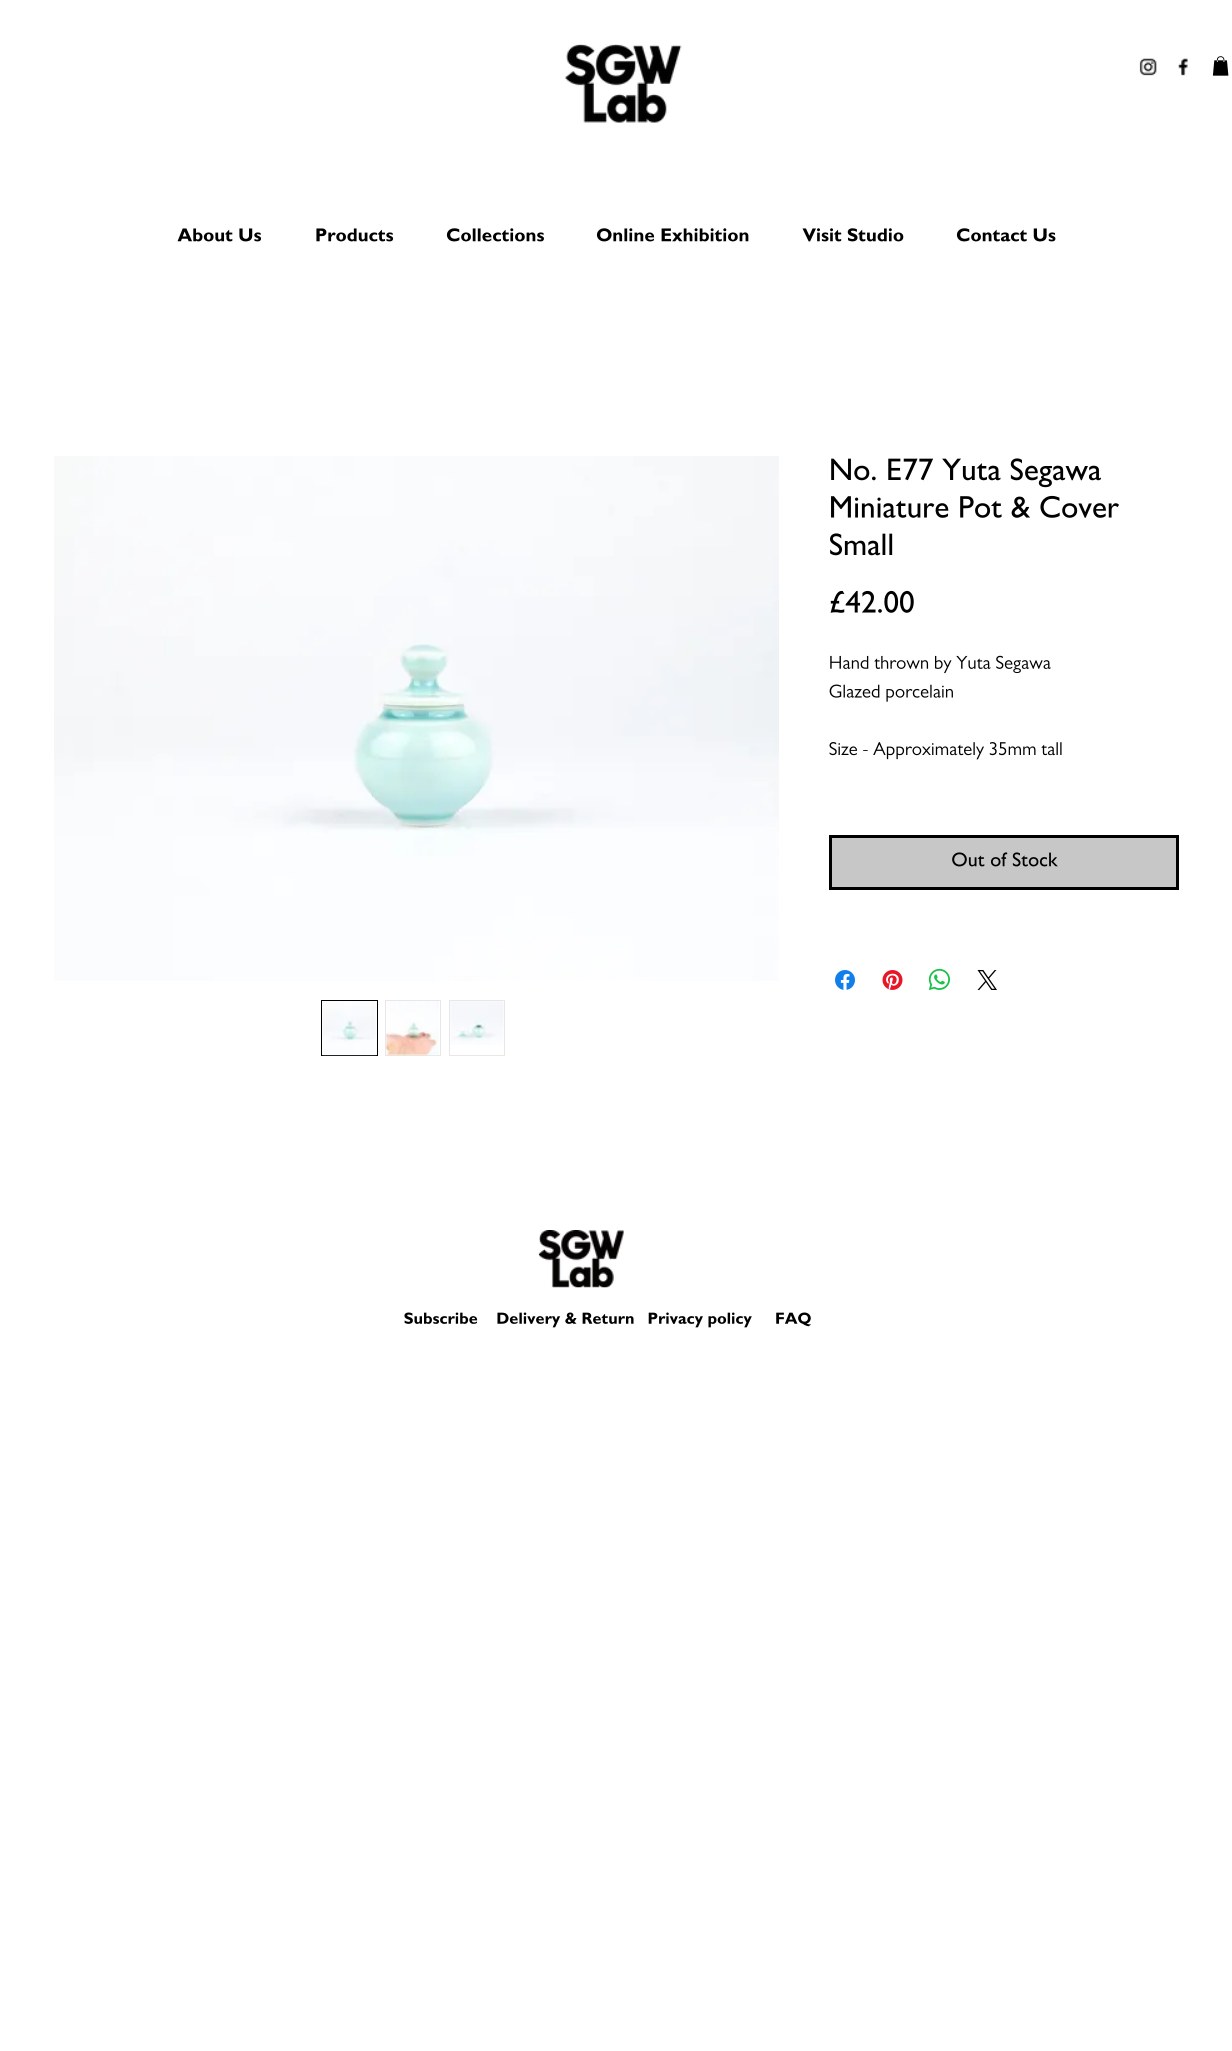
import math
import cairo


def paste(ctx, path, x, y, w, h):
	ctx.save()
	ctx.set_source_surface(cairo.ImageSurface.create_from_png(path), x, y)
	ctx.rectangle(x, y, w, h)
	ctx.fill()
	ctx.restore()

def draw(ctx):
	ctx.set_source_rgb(1, 1, 1)
	ctx.paint()
	paste(ctx, 'media/1.png', 565, 44, 117, 79)
	paste(ctx, 'media/2.png', 1139, 58, 18, 18)
	paste(ctx, 'media/3.png', 1178, 58, 10, 18)
	paste(ctx, 'media/4.png', 1212, 56, 17, 20)
	paste(ctx, 'media/5.png', 177, 228, 85, 14)
	paste(ctx, 'media/6.png', 316, 228, 78, 14)
	paste(ctx, 'media/7.png', 446, 228, 98, 14)
	paste(ctx, 'media/8.png', 596, 228, 153, 14)
	paste(ctx, 'media/9.png', 802, 228, 102, 14)
	paste(ctx, 'media/10.png', 956, 228, 100, 14)
	paste(ctx, 'media/11.png', 54, 456, 725, 525)
	ctx.rectangle(321.5, 1000.5, 56, 55)
	ctx.set_source_rgb(0, 0, 0)
	ctx.set_line_width(1)
	ctx.stroke()
	paste(ctx, 'media/12.png', 322, 1001, 55, 55)
	ctx.rectangle(385.5, 1000.5, 55, 55)
	ctx.set_source_rgb(0.91, 0.902, 0.902)
	ctx.stroke()
	paste(ctx, 'media/13.png', 386, 1001, 53, 55)
	ctx.rectangle(449.5, 1000.5, 55, 55)
	ctx.stroke()
	paste(ctx, 'media/14.png', 450, 1001, 54, 44)
	paste(ctx, 'media/15.png', 831, 458, 270, 30)
	paste(ctx, 'media/16.png', 831, 495, 288, 23)
	paste(ctx, 'media/17.png', 830, 533, 63, 23)
	paste(ctx, 'media/18.png', 830, 590, 84, 23)
	paste(ctx, 'media/19.png', 830, 655, 221, 19)
	paste(ctx, 'media/20.png', 829, 684, 124, 18)
	paste(ctx, 'media/21.png', 829, 742, 233, 18)
	ctx.set_source_rgb(0.78, 0.78, 0.78)
	ctx.rectangle(830.5, 836.5, 347, 52)
	ctx.fill_preserve()
	ctx.set_source_rgb(0, 0, 0)
	ctx.set_line_width(3)
	ctx.stroke()
	paste(ctx, 'media/22.png', 952, 852, 106, 15)
	paste(ctx, 'media/23.png', 835, 970, 20, 20)
	paste(ctx, 'media/24.png', 882, 970, 21, 20)
	paste(ctx, 'media/25.png', 928, 968, 22, 22)
	paste(ctx, 'media/26.png', 977, 970, 20, 20)
	paste(ctx, 'media/27.png', 538, 1230, 86, 58)
	paste(ctx, 'media/28.png', 404, 1312, 74, 12)
	paste(ctx, 'media/29.png', 497, 1312, 137, 16)
	paste(ctx, 'media/30.png', 648, 1312, 104, 16)
	paste(ctx, 'media/31.png', 776, 1312, 35, 15)


surface = cairo.ImageSurface(cairo.FORMAT_RGB24, 1232, 2051)
ctx = cairo.Context(surface)
options = cairo.FontOptions()
options.set_hint_metrics(cairo.HINT_METRICS_OFF)
options.set_hint_style(cairo.HINT_STYLE_NONE)
ctx.set_font_options(options)
ctx.set_miter_limit(4)
draw(ctx)
surface.write_to_png('image.png')
